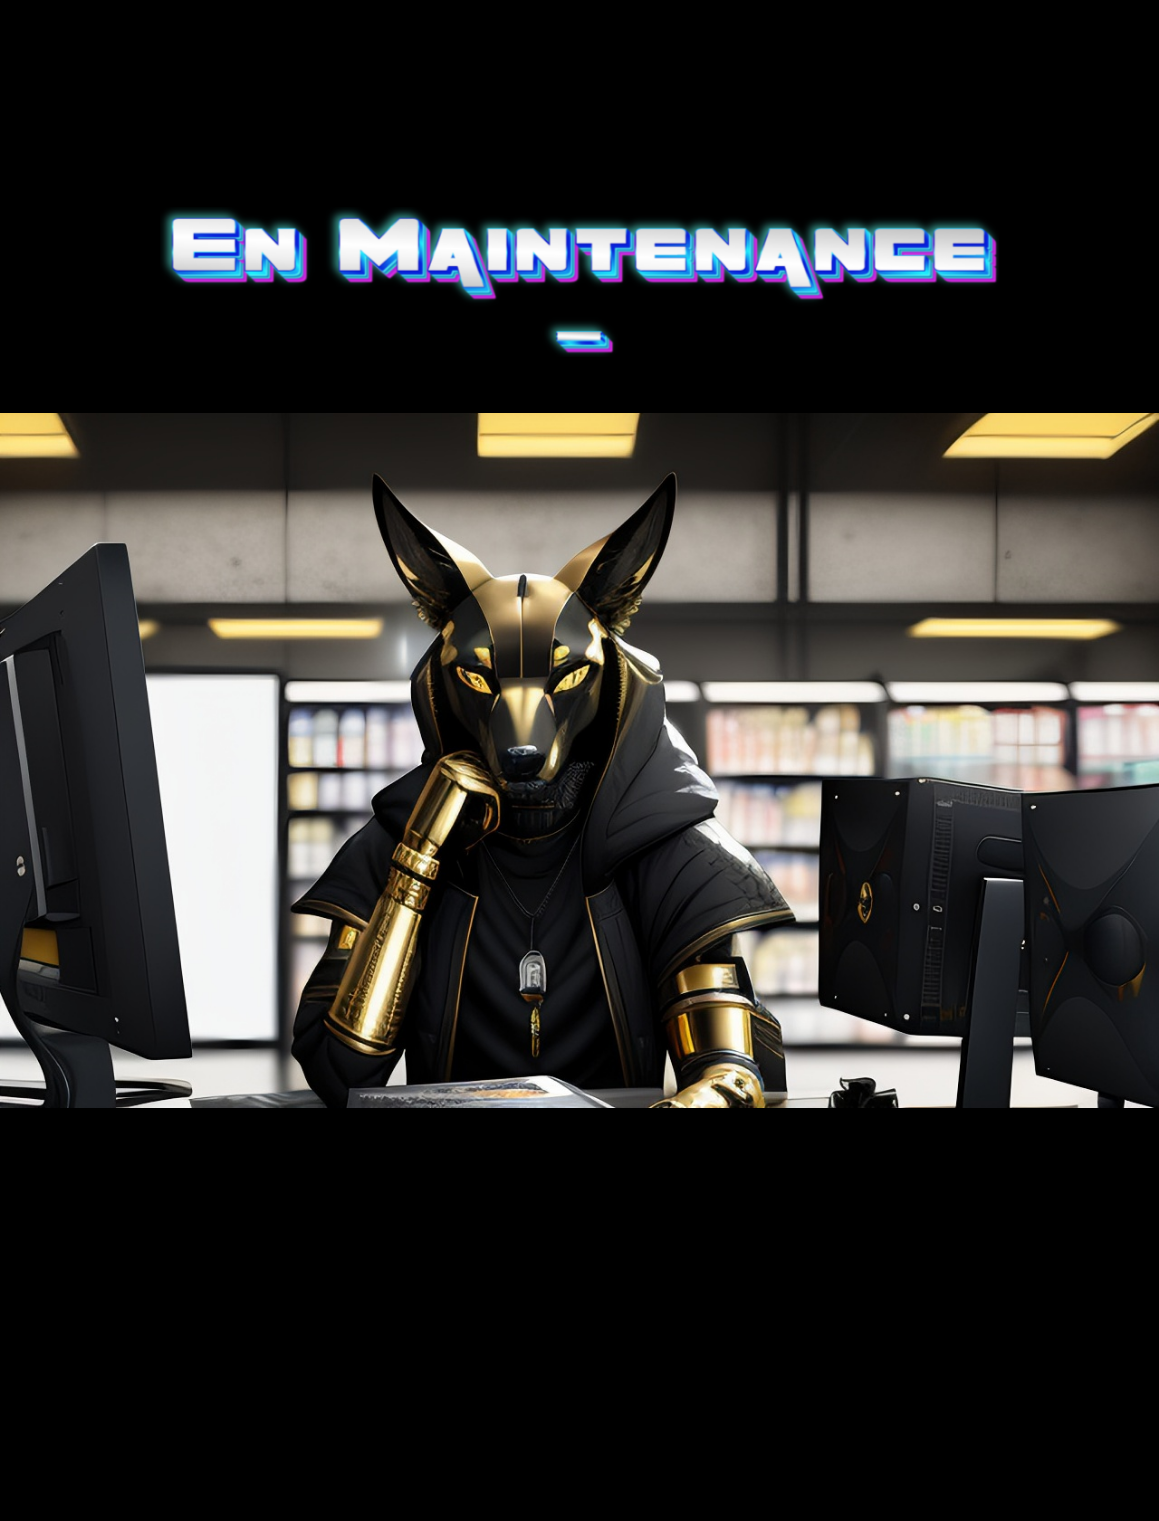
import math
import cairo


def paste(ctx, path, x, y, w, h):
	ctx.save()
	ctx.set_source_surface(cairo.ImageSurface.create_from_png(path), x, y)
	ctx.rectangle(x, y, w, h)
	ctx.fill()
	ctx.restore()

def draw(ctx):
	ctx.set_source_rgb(0, 0, 0)
	ctx.paint()
	paste(ctx, 'media/1.png', 0, 413, 1159, 695)
	paste(ctx, 'media/2.png', 160, 207, 839, 150)


surface = cairo.ImageSurface(cairo.FORMAT_RGB24, 1159, 1521)
ctx = cairo.Context(surface)
options = cairo.FontOptions()
options.set_hint_metrics(cairo.HINT_METRICS_OFF)
options.set_hint_style(cairo.HINT_STYLE_NONE)
ctx.set_font_options(options)
ctx.set_miter_limit(4)
draw(ctx)
surface.write_to_png('image.png')
